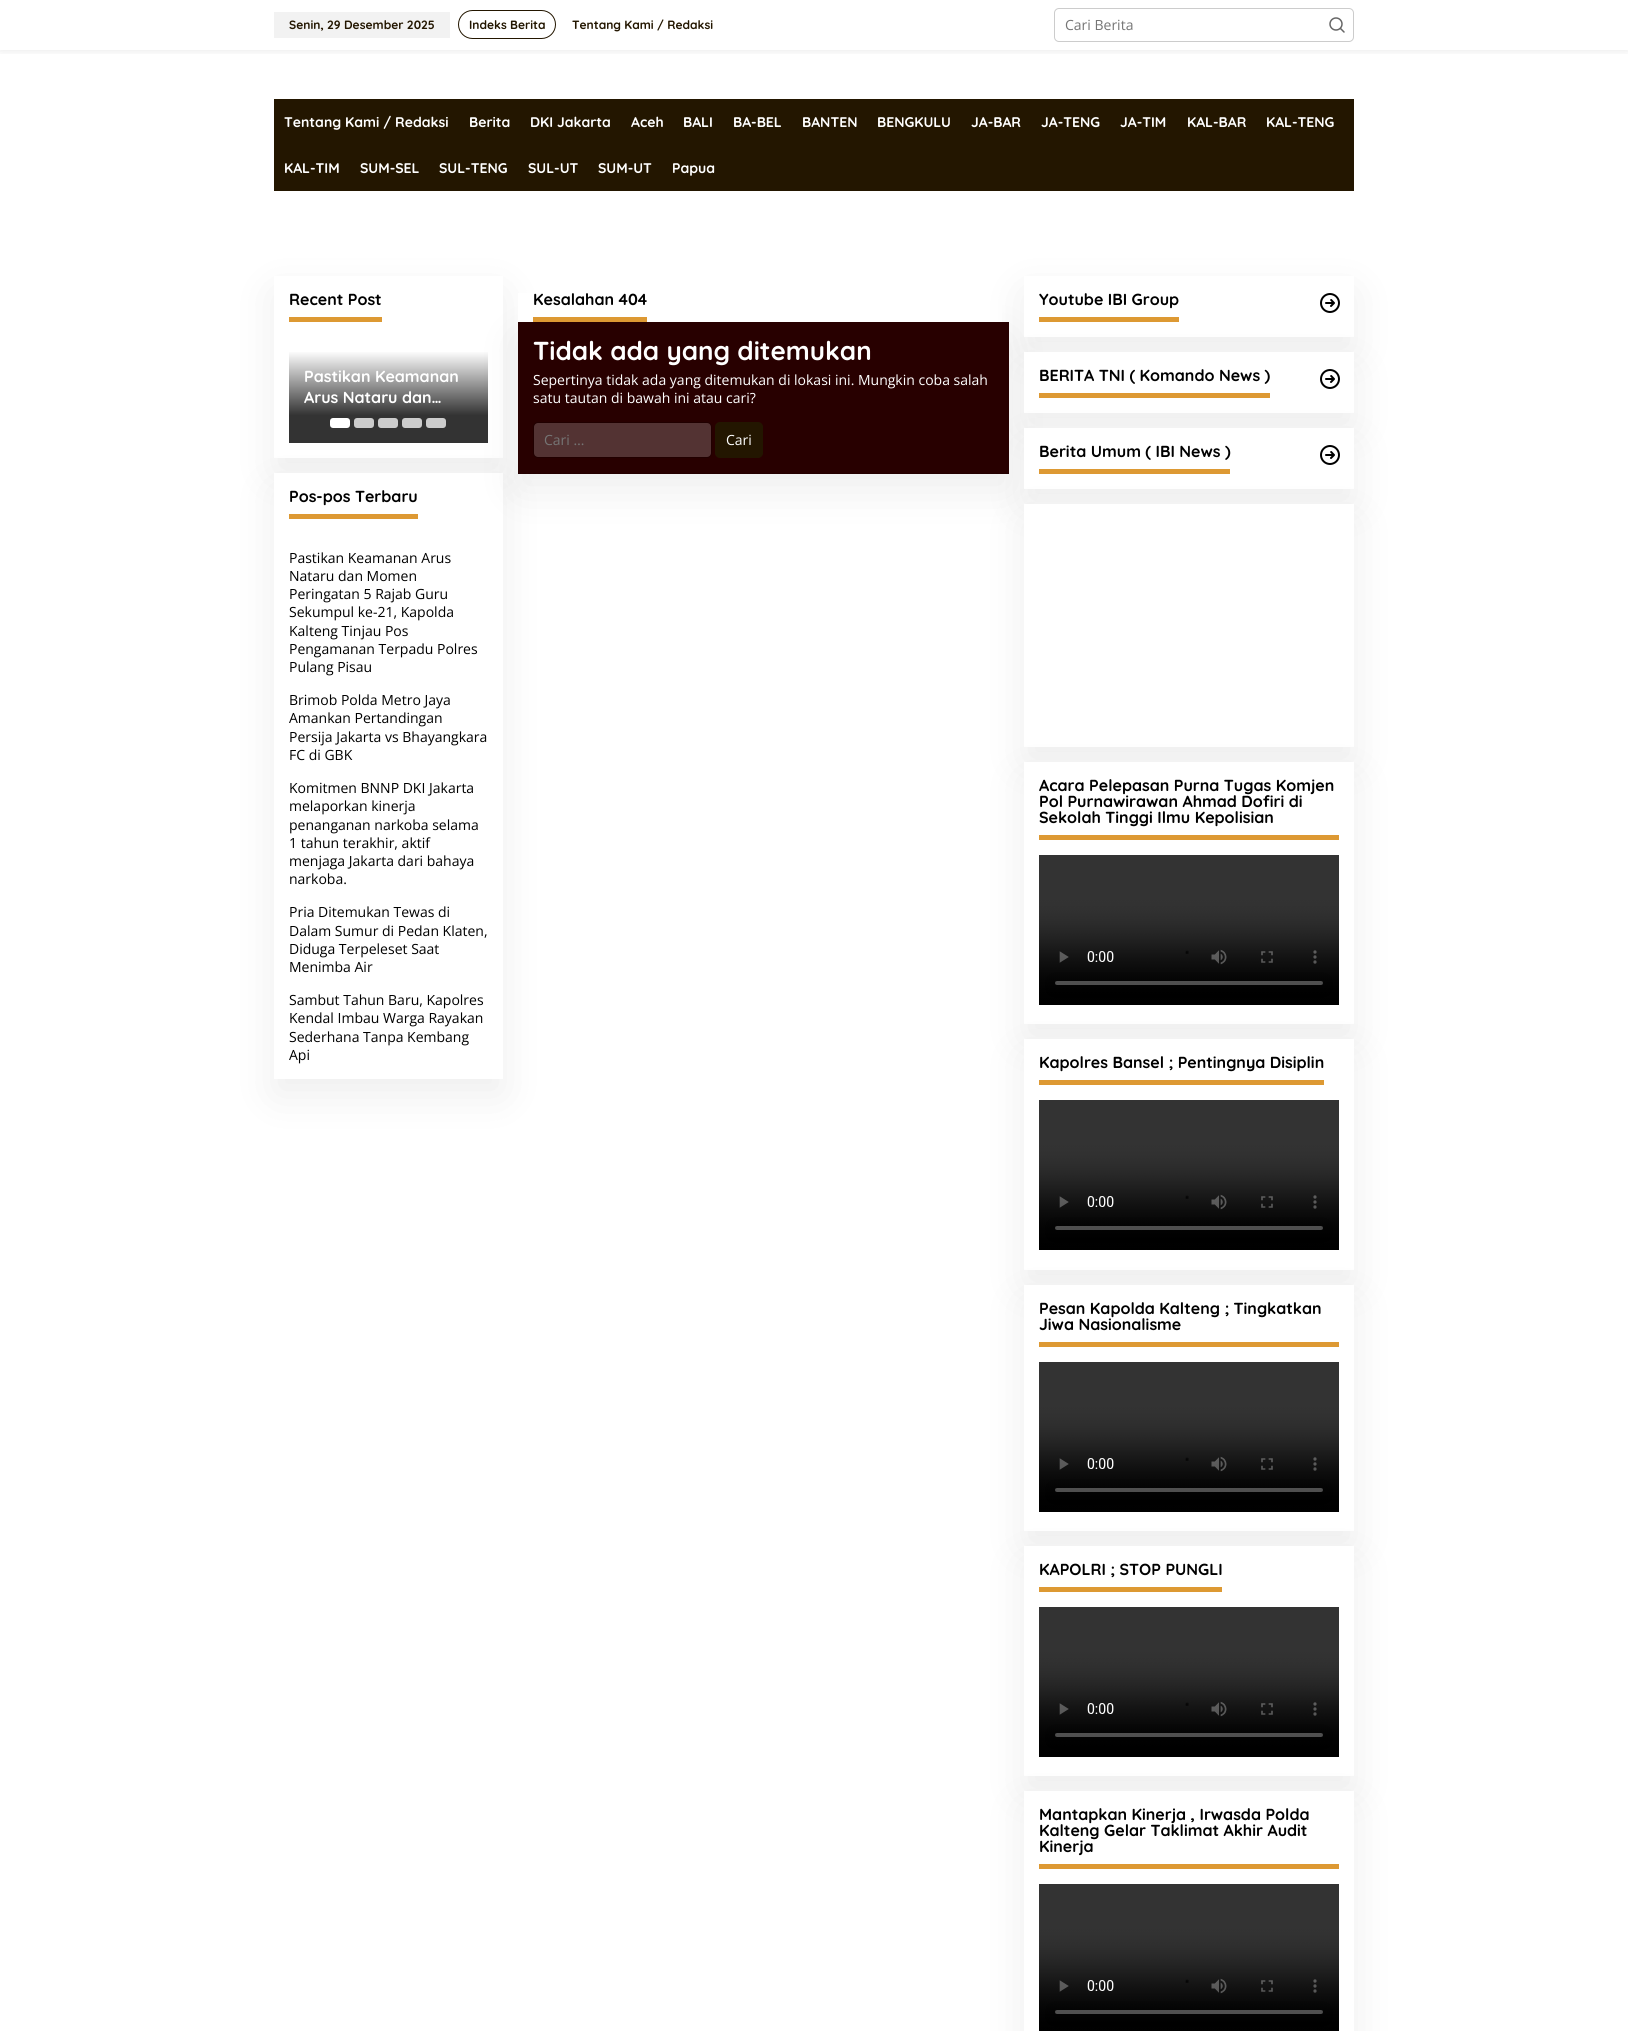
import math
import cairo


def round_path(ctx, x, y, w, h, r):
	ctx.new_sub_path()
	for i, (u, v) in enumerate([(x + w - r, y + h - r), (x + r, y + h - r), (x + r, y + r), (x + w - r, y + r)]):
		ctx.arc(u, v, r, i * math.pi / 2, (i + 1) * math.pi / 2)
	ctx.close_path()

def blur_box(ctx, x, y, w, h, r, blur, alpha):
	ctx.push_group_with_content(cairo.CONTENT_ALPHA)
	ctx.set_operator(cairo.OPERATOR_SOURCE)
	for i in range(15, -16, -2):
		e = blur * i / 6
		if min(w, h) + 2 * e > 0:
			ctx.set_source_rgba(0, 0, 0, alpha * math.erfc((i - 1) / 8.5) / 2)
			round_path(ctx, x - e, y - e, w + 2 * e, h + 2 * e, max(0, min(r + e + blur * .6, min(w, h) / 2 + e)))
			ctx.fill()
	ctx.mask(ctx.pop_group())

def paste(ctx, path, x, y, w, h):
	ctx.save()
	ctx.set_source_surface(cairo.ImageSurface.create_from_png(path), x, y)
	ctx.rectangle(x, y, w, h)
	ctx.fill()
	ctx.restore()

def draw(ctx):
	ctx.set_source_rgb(1, 1, 1)
	ctx.paint()
	ctx.save()
	ctx.rectangle(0, 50, 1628, 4)
	ctx.clip()
	ctx.set_source_rgb(0, 0, 0)
	blur_box(ctx, 0, 0, 1628, 50, 0, 5, 0.1)
	ctx.restore()
	ctx.set_source_rgb(0.949, 0.949, 0.949)
	ctx.rectangle(274, 12, 176, 26)
	ctx.fill()
	ctx.select_font_face('Quicksand', cairo.FONT_SLANT_NORMAL, cairo.FONT_WEIGHT_BOLD)
	ctx.set_font_size(12)
	ctx.set_source_rgb(0.137, 0.086, 0)
	ctx.move_to(289, 29)
	ctx.show_text('Senin, 29 Desember 2025')
	round_path(ctx, 458.5, 10.5, 97, 28, 14)
	ctx.set_line_width(1)
	ctx.stroke()
	ctx.move_to(469, 29)
	ctx.show_text('Indeks Berita')
	ctx.move_to(572, 29)
	ctx.show_text('Tentang Kami / Redaksi')
	round_path(ctx, 1054.5, 8.5, 299, 33, 4.5)
	ctx.set_source_rgb(0.8, 0.8, 0.8)
	ctx.stroke()
	ctx.select_font_face('Open Sans')
	ctx.set_font_size(14)
	ctx.set_source_rgb(0.459, 0.459, 0.459)
	ctx.move_to(1065, 30)
	ctx.show_text('Cari Berita')
	ctx.new_path()
	ctx.arc(1336, 24, 6, 0, 2 * math.pi)
	ctx.set_source_rgb(0.4, 0.4, 0.4)
	ctx.set_line_width(1.5)
	ctx.stroke()
	ctx.new_path()
	ctx.move_to(1344, 32)
	ctx.line_to(1340.5, 28.5)
	ctx.set_line_cap(cairo.LINE_CAP_ROUND)
	ctx.set_line_join(cairo.LINE_JOIN_ROUND)
	ctx.stroke()
	ctx.set_source_rgb(0.137, 0.086, 0)
	ctx.rectangle(274, 99, 1080, 92)
	ctx.fill()
	ctx.select_font_face('Quicksand', cairo.FONT_SLANT_NORMAL, cairo.FONT_WEIGHT_BOLD)
	ctx.set_source_rgb(1, 1, 1)
	for x, y, s in [
		(284, 127, 'Tentang Kami / Redaksi'),
		(469, 127, 'Berita'),
		(530, 127, 'DKI Jakarta'),
		(631, 127, 'Aceh'),
		(683, 127, 'BALI'),
		(733, 127, 'BA-BEL'),
		(802, 127, 'BANTEN'),
		(877, 127, 'BENGKULU'),
		(971, 127, 'JA-BAR'),
		(1041, 127, 'JA-TENG'),
		(1120, 127, 'JA-TIM'),
		(1187, 127, 'KAL-BAR'),
		(1266, 127, 'KAL-TENG'),
		(284, 173, 'KAL-TIM'),
		(360, 173, 'SUM-SEL'),
		(439, 173, 'SUL-TENG'),
		(528, 173, 'SUL-UT'),
		(598, 173, 'SUM-UT'),
		(672, 173, 'Papua'),
	]:
		ctx.move_to(x, y)
		ctx.show_text(s)
	ctx.save()
	ctx.set_fill_rule(cairo.FILL_RULE_EVEN_ODD)
	ctx.new_path()
	ctx.move_to(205, 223)
	ctx.line_to(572, 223)
	ctx.line_to(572, 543)
	ctx.line_to(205, 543)
	ctx.close_path()
	ctx.move_to(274, 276)
	ctx.line_to(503, 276)
	ctx.line_to(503, 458)
	ctx.line_to(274, 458)
	ctx.close_path()
	ctx.clip()
	ctx.set_source_rgb(0, 0, 0)
	blur_box(ctx, 274, 292, 229, 182, 0, 22.5, 0.07)
	ctx.restore()
	ctx.set_source_rgb(0.867, 0.6, 0.2)
	ctx.rectangle(289, 317, 93, 5)
	ctx.fill()
	ctx.set_font_size(16)
	ctx.set_source_rgb(0, 0, 0)
	ctx.move_to(289, 305)
	ctx.show_text('Recent Post')
	ctx.set_source_rgb(0, 0, 0)
	blur_box(ctx, 274, 489, 229, 606, 0, 22.5, 0.07)
	gradient = cairo.LinearGradient(389, 351, 389, 443)
	gradient.add_color_stop_rgba(0, 1, 1, 1, 1)
	gradient.add_color_stop_rgba(0.7, 0.2, 0.2, 0.2, 1)
	ctx.set_source(gradient)
	ctx.rectangle(289, 352, 199, 91)
	ctx.fill()
	ctx.set_source_rgb(1, 1, 1)
	ctx.move_to(304, 382)
	ctx.show_text('Pastikan Keamanan')
	ctx.move_to(304, 403)
	ctx.show_text('Arus Nataru dan…')
	round_path(ctx, 330, 418, 20, 10, 3)
	ctx.fill()
	ctx.set_source_rgb(0.8, 0.8, 0.8)
	round_path(ctx, 354, 418, 20, 10, 3)
	ctx.fill()
	round_path(ctx, 378, 418, 20, 10, 3)
	ctx.fill()
	round_path(ctx, 402, 418, 20, 10, 3)
	ctx.fill()
	round_path(ctx, 426, 418, 20, 10, 3)
	ctx.fill()
	ctx.set_source_rgb(1, 1, 1)
	ctx.rectangle(274, 473, 229, 606)
	ctx.fill()
	ctx.set_source_rgb(0.867, 0.6, 0.2)
	ctx.rectangle(289, 514, 129, 5)
	ctx.fill()
	ctx.set_source_rgb(0, 0, 0)
	ctx.move_to(289, 502)
	ctx.show_text('Pos-pos Terbaru')
	ctx.select_font_face('Open Sans')
	ctx.set_font_size(14)
	for x, y, s in [
		(289, 563, 'Pastikan Keamanan Arus'),
		(289, 581, 'Nataru dan Momen'),
		(289, 599, 'Peringatan 5 Rajab Guru'),
		(289, 617, 'Sekumpul ke-21, Kapolda'),
		(289, 636, 'Kalteng Tinjau Pos'),
		(289, 654, 'Pengamanan Terpadu Polres'),
		(289, 672, 'Pulang Pisau'),
		(289, 705, 'Brimob Polda Metro Jaya'),
		(289, 723, 'Amankan Pertandingan'),
		(289, 742, 'Persija Jakarta vs Bhayangkara'),
		(289, 760, 'FC di GBK'),
		(289, 793, 'Komitmen BNNP DKI Jakarta'),
		(289, 811, 'melaporkan kinerja'),
		(289, 830, 'penanganan narkoba selama'),
		(289, 848, '1 tahun terakhir, aktif'),
		(289, 866, 'menjaga Jakarta dari bahaya'),
		(289, 884, 'narkoba.'),
		(289, 917, 'Pria Ditemukan Tewas di'),
		(289, 936, 'Dalam Sumur di Pedan Klaten,'),
		(289, 954, 'Diduga Terpeleset Saat'),
		(289, 972, 'Menimba Air'),
		(289, 1005, 'Sambut Tahun Baru, Kapolres'),
		(289, 1023, 'Kendal Imbau Warga Rayakan'),
		(289, 1042, 'Sederhana Tanpa Kembang'),
		(289, 1060, 'Api'),
	]:
		ctx.move_to(x, y)
		ctx.show_text(s)
	ctx.set_source_rgb(0, 0, 0)
	blur_box(ctx, 518, 338, 491, 152, 0, 22.5, 0.07)
	ctx.set_source_rgb(1, 1, 1)
	ctx.rectangle(518, 293, 484, 29)
	ctx.fill()
	ctx.set_source_rgb(0.867, 0.6, 0.2)
	ctx.rectangle(533, 317, 114, 5)
	ctx.fill()
	ctx.select_font_face('Quicksand', cairo.FONT_SLANT_NORMAL, cairo.FONT_WEIGHT_BOLD)
	ctx.set_font_size(16)
	ctx.set_source_rgb(0, 0, 0)
	ctx.move_to(533, 305)
	ctx.show_text('Kesalahan 404')
	ctx.set_source_rgb(0.157, 0, 0)
	ctx.rectangle(518, 322, 491, 152)
	ctx.fill()
	ctx.new_path()
	ctx.move_to(518, 473.5)
	ctx.line_to(1009, 473.5)
	ctx.set_source_rgb(0.133, 0, 0)
	ctx.set_line_width(1)
	ctx.set_line_cap(cairo.LINE_CAP_BUTT)
	ctx.set_line_join(cairo.LINE_JOIN_MITER)
	ctx.set_dash([3, 1.98])
	ctx.stroke()
	ctx.set_font_size(26)
	ctx.set_source_rgb(1, 1, 1)
	ctx.move_to(533, 360)
	ctx.show_text('Tidak ada yang ditemukan')
	ctx.select_font_face('Open Sans')
	ctx.set_font_size(14)
	ctx.move_to(533, 385)
	ctx.show_text('Sepertinya tidak ada yang ditemukan di lokasi ini. Mungkin coba salah')
	ctx.move_to(533, 403)
	ctx.show_text('satu tautan di bawah ini atau cari?')
	ctx.set_source_rgb(0.325, 0.2, 0.2)
	round_path(ctx, 534, 423, 177, 34, 4)
	ctx.fill()
	round_path(ctx, 533.5, 422.5, 178, 35, 4.5)
	ctx.set_source_rgba(0, 0, 0, 0.2)
	ctx.set_dash([])
	ctx.stroke()
	ctx.set_source_rgb(0.459, 0.459, 0.459)
	ctx.move_to(544, 445)
	ctx.show_text('Cari …')
	ctx.set_source_rgb(0.137, 0.086, 0)
	round_path(ctx, 715.5, 422.5, 47, 35, 4.5)
	ctx.fill_preserve()
	ctx.stroke()
	ctx.set_source_rgb(1, 1, 1)
	ctx.move_to(726, 445)
	ctx.show_text('Cari')
	ctx.set_source_rgb(0, 0, 0)
	blur_box(ctx, 1024, 292, 330, 61, 0, 22.5, 0.07)
	ctx.set_source_rgb(1, 1, 1)
	ctx.rectangle(1024, 276, 330, 61)
	ctx.fill()
	ctx.set_source_rgb(0, 0, 0)
	blur_box(ctx, 1024, 368, 330, 61, 0, 22.5, 0.07)
	ctx.set_source_rgb(0.867, 0.6, 0.2)
	ctx.rectangle(1039, 317, 140, 5)
	ctx.fill()
	ctx.select_font_face('Quicksand', cairo.FONT_SLANT_NORMAL, cairo.FONT_WEIGHT_BOLD)
	ctx.set_font_size(16)
	ctx.set_source_rgb(0, 0, 0)
	ctx.move_to(1039, 305)
	ctx.show_text('Youtube IBI Group')
	paste(ctx, 'media/1.png', 1320, 293, 20, 20)
	ctx.set_source_rgb(1, 1, 1)
	ctx.rectangle(1024, 352, 330, 61)
	ctx.fill()
	ctx.set_source_rgb(0, 0, 0)
	blur_box(ctx, 1024, 444, 330, 61, 0, 22.5, 0.07)
	ctx.set_source_rgb(0.867, 0.6, 0.2)
	ctx.rectangle(1039, 393, 231, 5)
	ctx.fill()
	ctx.set_source_rgb(0, 0, 0)
	ctx.move_to(1039, 381)
	ctx.show_text('BERITA TNI ( Komando News )')
	paste(ctx, 'media/1.png', 1320, 369, 20, 20)
	ctx.set_source_rgb(1, 1, 1)
	ctx.rectangle(1024, 428, 330, 61)
	ctx.fill()
	ctx.set_source_rgb(0, 0, 0)
	blur_box(ctx, 1024, 520, 330, 243, 0, 22.5, 0.07)
	ctx.set_source_rgb(0.867, 0.6, 0.2)
	ctx.rectangle(1039, 469, 191, 5)
	ctx.fill()
	ctx.set_source_rgb(0, 0, 0)
	ctx.move_to(1039, 457)
	ctx.show_text('Berita Umum ( IBI News )')
	paste(ctx, 'media/1.png', 1320, 445, 20, 20)
	ctx.set_source_rgb(1, 1, 1)
	ctx.rectangle(1024, 504, 330, 243)
	ctx.fill()
	ctx.set_source_rgb(0, 0, 0)
	blur_box(ctx, 1024, 778, 330, 262, 0, 22.5, 0.07)
	ctx.set_source_rgb(1, 1, 1)
	ctx.rectangle(1024, 762, 330, 262)
	ctx.fill()
	ctx.set_source_rgb(0.867, 0.6, 0.2)
	ctx.rectangle(1039, 835, 300, 5)
	ctx.fill()
	ctx.set_source_rgb(0, 0, 0)
	for x, y, s in [
		(1039, 791, 'Acara Pelepasan Purna Tugas Komjen'),
		(1039, 807, 'Pol Purnawirawan Ahmad Dofiri di'),
		(1039, 823, 'Sekolah Tinggi Ilmu Kepolisian'),
	]:
		ctx.move_to(x, y)
		ctx.show_text(s)
	ctx.set_source_rgb(0, 0, 0)
	blur_box(ctx, 1024, 1055, 330, 231, 0, 22.5, 0.07)
	paste(ctx, 'media/2.png', 1039, 855, 300, 150)
	ctx.set_source_rgb(1, 1, 1)
	ctx.rectangle(1024, 1039, 330, 231)
	ctx.fill()
	ctx.set_source_rgb(0.867, 0.6, 0.2)
	ctx.rectangle(1039, 1080, 285, 5)
	ctx.fill()
	ctx.set_source_rgb(0, 0, 0)
	ctx.move_to(1039, 1068)
	ctx.show_text('Kapolres Bansel ; Pentingnya Disiplin')
	ctx.set_source_rgb(0, 0, 0)
	blur_box(ctx, 1024, 1301, 330, 246, 0, 22.5, 0.07)
	paste(ctx, 'media/3.png', 1039, 1100, 300, 150)
	ctx.set_source_rgb(1, 1, 1)
	ctx.rectangle(1024, 1285, 330, 246)
	ctx.fill()
	ctx.set_source_rgb(0.867, 0.6, 0.2)
	ctx.rectangle(1039, 1342, 300, 5)
	ctx.fill()
	ctx.set_source_rgb(0, 0, 0)
	ctx.move_to(1039, 1314)
	ctx.show_text('Pesan Kapolda Kalteng ; Tingkatkan')
	ctx.move_to(1039, 1330)
	ctx.show_text('Jiwa Nasionalisme')
	ctx.set_source_rgb(0, 0, 0)
	blur_box(ctx, 1024, 1562, 330, 230, 0, 22.5, 0.07)
	paste(ctx, 'media/3.png', 1039, 1362, 300, 150)
	ctx.set_source_rgb(1, 1, 1)
	ctx.rectangle(1024, 1546, 330, 230)
	ctx.fill()
	ctx.set_source_rgb(0.867, 0.6, 0.2)
	ctx.rectangle(1039, 1587, 183, 5)
	ctx.fill()
	ctx.set_source_rgb(0, 0, 0)
	ctx.move_to(1039, 1575)
	ctx.show_text('KAPOLRI ; STOP PUNGLI')
	ctx.set_source_rgb(0, 0, 0)
	blur_box(ctx, 1024, 1807, 330, 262, 0, 22.5, 0.07)
	paste(ctx, 'media/4.png', 1039, 1607, 300, 150)
	ctx.set_source_rgb(1, 1, 1)
	ctx.rectangle(1024, 1791, 330, 240)
	ctx.fill()
	ctx.set_source_rgb(0.867, 0.6, 0.2)
	ctx.rectangle(1039, 1864, 300, 5)
	ctx.fill()
	ctx.set_source_rgb(0, 0, 0)
	for x, y, s in [
		(1039, 1820, 'Mantapkan Kinerja , Irwasda Polda'),
		(1039, 1836, 'Kalteng Gelar Taklimat Akhir Audit'),
		(1039, 1852, 'Kinerja'),
	]:
		ctx.move_to(x, y)
		ctx.show_text(s)
	paste(ctx, 'media/5.png', 1039, 1884, 300, 147)


surface = cairo.ImageSurface(cairo.FORMAT_RGB24, 1628, 2031)
ctx = cairo.Context(surface)
options = cairo.FontOptions()
options.set_hint_metrics(cairo.HINT_METRICS_OFF)
options.set_hint_style(cairo.HINT_STYLE_NONE)
ctx.set_font_options(options)
ctx.set_miter_limit(4)
draw(ctx)
surface.write_to_png('image.png')
